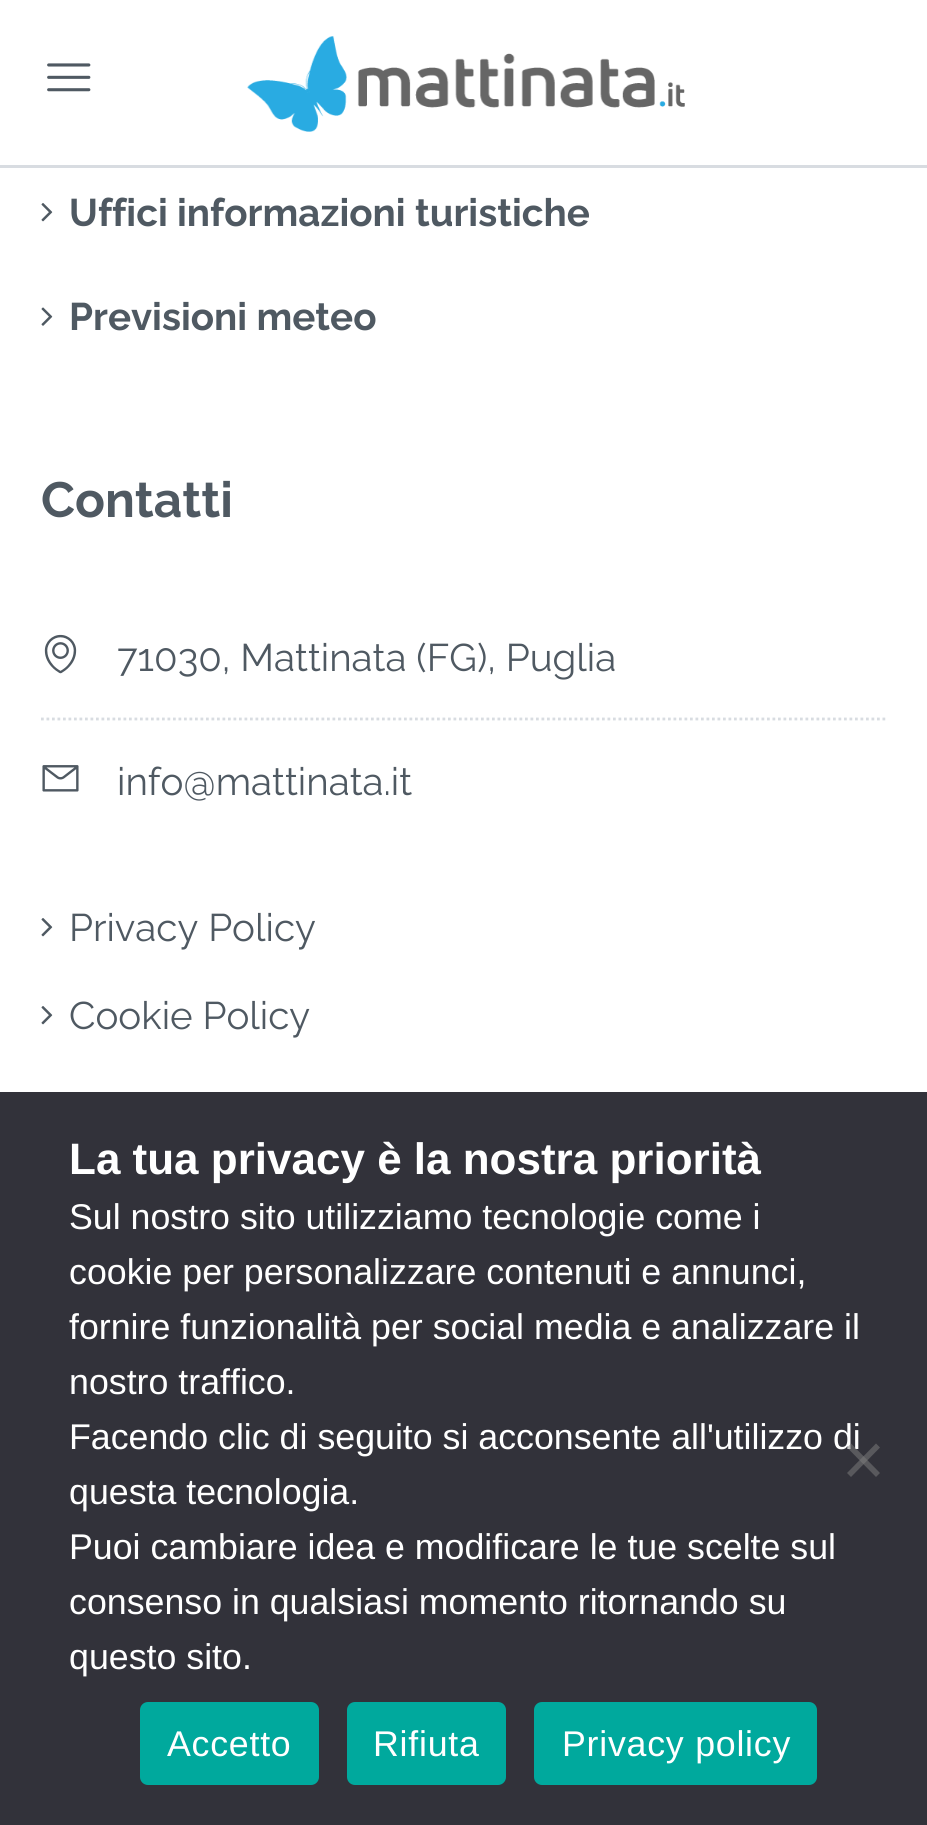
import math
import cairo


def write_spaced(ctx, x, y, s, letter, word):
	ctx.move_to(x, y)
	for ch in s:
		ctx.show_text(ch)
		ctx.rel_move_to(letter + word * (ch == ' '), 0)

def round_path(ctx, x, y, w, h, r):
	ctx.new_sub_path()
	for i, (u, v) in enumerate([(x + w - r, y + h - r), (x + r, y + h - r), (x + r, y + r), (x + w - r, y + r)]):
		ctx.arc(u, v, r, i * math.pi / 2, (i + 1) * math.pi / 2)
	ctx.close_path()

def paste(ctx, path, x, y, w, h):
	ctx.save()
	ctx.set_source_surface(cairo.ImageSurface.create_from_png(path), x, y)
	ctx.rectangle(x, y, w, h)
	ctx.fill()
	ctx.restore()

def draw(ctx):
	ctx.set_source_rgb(1, 1, 1)
	ctx.paint()
	ctx.set_source_rgb(0.847, 0.863, 0.882)
	ctx.rectangle(0, 165, 927, 3)
	ctx.fill()
	paste(ctx, 'media/1.png', 47, 63, 44, 29)
	paste(ctx, 'media/2.png', 247, 36, 438, 96)
	paste(ctx, 'media/3.png', 41, 203, 12, 19)
	ctx.select_font_face('Raleway', cairo.FONT_SLANT_NORMAL, cairo.FONT_WEIGHT_BOLD)
	ctx.set_font_size(38.5)
	ctx.set_source_rgb(0.31, 0.349, 0.384)
	ctx.move_to(69, 226)
	ctx.show_text('Uffici informazioni turistiche')
	paste(ctx, 'media/4.png', 41, 307, 12, 19)
	ctx.move_to(69, 330)
	ctx.show_text('Previsioni meteo')
	ctx.set_font_size(49.5)
	ctx.move_to(41, 517)
	ctx.show_text('Contatti')
	ctx.new_path()
	ctx.move_to(41, 719)
	ctx.line_to(888, 719)
	ctx.set_source_rgb(0.847, 0.863, 0.882)
	ctx.set_line_width(2.8)
	ctx.set_dash([2.75, 2.75])
	ctx.stroke()
	paste(ctx, 'media/5.png', 44, 634, 33, 40)
	ctx.select_font_face('Raleway')
	ctx.set_font_size(38.5)
	ctx.set_source_rgb(0.31, 0.349, 0.384)
	ctx.move_to(117, 671)
	ctx.show_text('71030, Mattinata (FG), Puglia')
	paste(ctx, 'media/6.png', 42, 765, 37, 27)
	ctx.move_to(117, 795)
	ctx.show_text('info@mattinata.it')
	paste(ctx, 'media/3.png', 41, 918, 12, 19)
	ctx.move_to(69, 941)
	ctx.show_text('Privacy Policy')
	paste(ctx, 'media/3.png', 41, 1006, 12, 19)
	ctx.move_to(69, 1029)
	ctx.show_text('Cookie Policy')
	ctx.set_source_rgb(0.196, 0.196, 0.227)
	ctx.rectangle(0, 1092, 927, 733)
	ctx.fill()
	ctx.select_font_face('Liberation Sans', cairo.FONT_SLANT_NORMAL, cairo.FONT_WEIGHT_BOLD)
	ctx.set_font_size(44)
	ctx.set_source_rgb(1, 1, 1)
	ctx.move_to(69, 1174)
	ctx.show_text('La tua privacy è la nostra priorità')
	ctx.select_font_face('Liberation Sans')
	ctx.set_font_size(35.75)
	for x, y, s in [
		(69, 1229, 'Sul nostro sito utilizziamo tecnologie come i'),
		(69, 1284, 'cookie per personalizzare contenuti e annunci,'),
		(69, 1339, 'fornire funzionalità per social media e analizzare il'),
		(69, 1394, 'nostro traffico.'),
		(69, 1449, 'Facendo clic di seguito si acconsente all\'utilizzo di'),
		(69, 1504, 'questa tecnologia.'),
		(69, 1559, 'Puoi cambiare idea e modificare le tue scelte sul'),
		(69, 1614, 'consenso in qualsiasi momento ritornando su'),
		(69, 1669, 'questo sito.'),
	]:
		ctx.move_to(x, y)
		ctx.show_text(s)
	ctx.set_source_rgb(0.349, 0.349, 0.365)
	ctx.new_path()
	ctx.move_to(876, 1443.5)
	ctx.line_to(880, 1447.5)
	ctx.line_to(851, 1477)
	ctx.line_to(847, 1473)
	ctx.close_path()
	ctx.fill()
	ctx.set_source_rgba(0.502, 0.502, 0.502, 0.5)
	ctx.new_path()
	ctx.move_to(847, 1447.5)
	ctx.line_to(851, 1443.5)
	ctx.line_to(880, 1473)
	ctx.line_to(876, 1477)
	ctx.close_path()
	ctx.fill()
	ctx.set_source_rgb(0, 0.663, 0.616)
	round_path(ctx, 140, 1702, 179, 83, 8)
	ctx.fill()
	ctx.set_source_rgb(1, 1, 1)
	write_spaced(ctx, 167, 1756, 'Accetto', 0.75, 0)
	ctx.set_source_rgb(0, 0.663, 0.616)
	round_path(ctx, 347, 1702, 159, 83, 8)
	ctx.fill()
	ctx.set_source_rgb(1, 1, 1)
	write_spaced(ctx, 373, 1756, 'Rifiuta', 0.75, 0)
	ctx.set_source_rgb(0, 0.663, 0.616)
	round_path(ctx, 534, 1702, 283, 83, 8)
	ctx.fill()
	ctx.set_source_rgb(1, 1, 1)
	write_spaced(ctx, 562, 1756, 'Privacy policy', 0.75, 0)


surface = cairo.ImageSurface(cairo.FORMAT_RGB24, 927, 1825)
ctx = cairo.Context(surface)
options = cairo.FontOptions()
options.set_hint_metrics(cairo.HINT_METRICS_OFF)
options.set_hint_style(cairo.HINT_STYLE_NONE)
ctx.set_font_options(options)
ctx.set_miter_limit(4)
draw(ctx)
surface.write_to_png('image.png')
